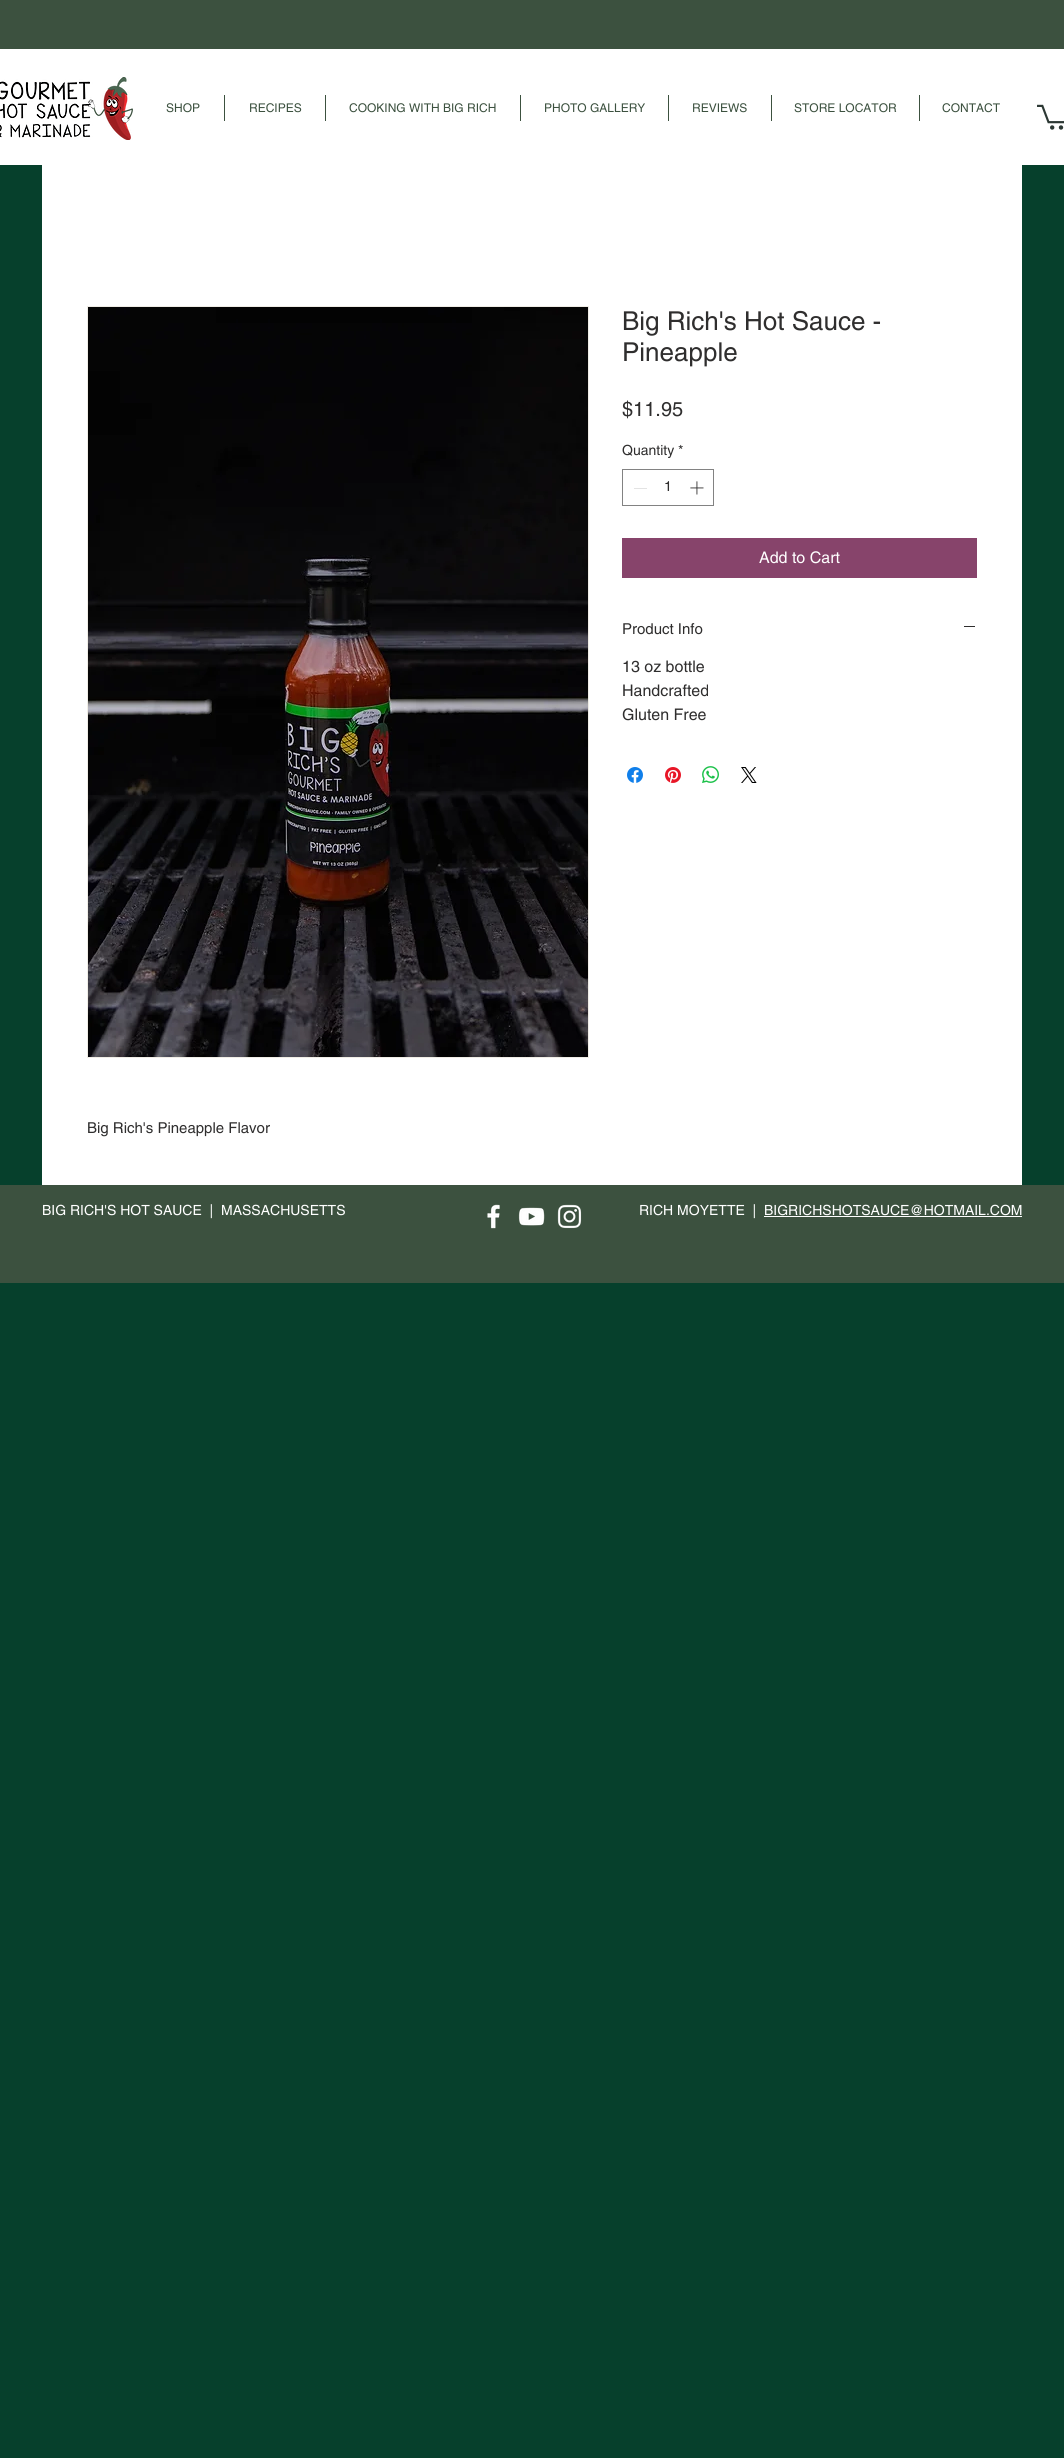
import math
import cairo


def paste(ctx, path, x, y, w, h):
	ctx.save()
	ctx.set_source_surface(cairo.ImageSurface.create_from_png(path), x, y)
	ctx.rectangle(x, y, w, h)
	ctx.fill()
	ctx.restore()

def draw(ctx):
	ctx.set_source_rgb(0.024, 0.251, 0.173)
	ctx.paint()
	ctx.set_source_rgb(1, 1, 1)
	ctx.rectangle(0, 49, 1064, 116)
	ctx.fill()
	ctx.set_source_rgb(0.235, 0.318, 0.247)
	ctx.rectangle(0, 0, 1064, 49)
	ctx.fill()
	paste(ctx, 'media/1.png', 0, 77, 133, 63)
	ctx.select_font_face('helvetica')
	ctx.set_font_size(12)
	ctx.move_to(166, 112)
	ctx.show_text('SHOP')
	ctx.rectangle(224, 95, 1, 26)
	ctx.fill()
	ctx.move_to(249, 112)
	ctx.show_text('RECIPES')
	ctx.rectangle(325, 95, 1, 26)
	ctx.fill()
	ctx.move_to(349, 112)
	ctx.show_text('COOKING WITH BIG RICH')
	ctx.rectangle(520, 95, 1, 26)
	ctx.fill()
	ctx.move_to(544, 112)
	ctx.show_text('PHOTO GALLERY')
	ctx.rectangle(668, 95, 1, 26)
	ctx.fill()
	ctx.move_to(692, 112)
	ctx.show_text('REVIEWS')
	ctx.rectangle(771, 95, 1, 26)
	ctx.fill()
	ctx.move_to(794, 112)
	ctx.show_text('STORE LOCATOR')
	ctx.rectangle(919, 95, 1, 26)
	ctx.fill()
	ctx.move_to(942, 112)
	ctx.show_text('CONTACT')
	paste(ctx, 'media/2.png', 1037, 104, 27, 26)
	ctx.set_source_rgb(1, 1, 1)
	ctx.rectangle(42, 165, 980, 1020)
	ctx.fill()
	ctx.set_font_size(26)
	ctx.set_source_rgb(0.184, 0.18, 0.18)
	ctx.move_to(622, 330)
	ctx.show_text('Big Rich\'s Hot Sauce -')
	ctx.move_to(622, 361)
	ctx.show_text('Pineapple')
	ctx.set_font_size(20)
	ctx.move_to(622, 416)
	ctx.show_text('$11.95')
	ctx.set_font_size(14)
	ctx.move_to(622, 455)
	ctx.show_text('Quantity *')
	ctx.rectangle(622.5, 469.5, 91, 36)
	ctx.set_source_rgb(0.51, 0.51, 0.51)
	ctx.set_line_width(1)
	ctx.stroke()
	ctx.set_source_rgb(0.89, 0.89, 0.89)
	ctx.rectangle(634, 488, 13, 1)
	ctx.fill()
	ctx.set_source_rgb(0.184, 0.18, 0.18)
	ctx.move_to(664, 491)
	ctx.show_text('1')
	paste(ctx, 'media/3.png', 690, 481, 14, 14)
	ctx.set_source_rgb(0.529, 0.267, 0.42)
	ctx.rectangle(622, 538, 355, 40)
	ctx.fill()
	ctx.set_font_size(16)
	ctx.set_source_rgb(1, 1, 1)
	ctx.move_to(759, 563)
	ctx.show_text('Add to Cart')
	ctx.set_font_size(15)
	ctx.set_source_rgb(0.184, 0.18, 0.18)
	ctx.move_to(622, 634)
	ctx.show_text('Product Info')
	ctx.rectangle(964, 626, 11, 1)
	ctx.fill()
	ctx.set_font_size(16)
	for x, y, s in [
		(622, 672, '13 oz bottle'),
		(622, 696, 'Handcrafted'),
		(622, 720, 'Gluten Free'),
	]:
		ctx.move_to(x, y)
		ctx.show_text(s)
	paste(ctx, 'media/4.png', 627, 767, 16, 16)
	paste(ctx, 'media/5.png', 665, 767, 16, 16)
	paste(ctx, 'media/6.png', 702, 766, 17, 17)
	paste(ctx, 'media/7.png', 741, 767, 16, 16)
	ctx.rectangle(87.5, 306.5, 501, 751)
	ctx.set_source_rgb(0.941, 0.929, 0.902)
	ctx.stroke()
	paste(ctx, 'media/8.png', 88, 307, 500, 750)
	ctx.set_font_size(15)
	ctx.set_source_rgb(0.184, 0.18, 0.18)
	ctx.move_to(87, 1133)
	ctx.show_text('Big Rich\'s Pineapple Flavor')
	ctx.set_source_rgb(0.235, 0.318, 0.247)
	ctx.rectangle(0, 1185, 1064, 98)
	ctx.fill()
	ctx.set_font_size(14)
	ctx.set_source_rgb(1, 1, 1)
	ctx.move_to(42, 1215)
	ctx.show_text('BIG RICH\'S HOT SAUCE  |  MASSACHUSETTS')
	paste(ctx, 'media/9.png', 487, 1204, 13, 25)
	paste(ctx, 'media/10.png', 518, 1207, 27, 19)
	paste(ctx, 'media/11.png', 557, 1204, 25, 25)
	ctx.move_to(639, 1215)
	ctx.show_text('RICH MOYETTE  |')
	ctx.move_to(764, 1215)
	ctx.show_text('BIGRICHSHOTSAUCE@HOTMAIL.COM')
	ctx.rectangle(764, 1216, 258, 1)
	ctx.fill()


surface = cairo.ImageSurface(cairo.FORMAT_RGB24, 1064, 2458)
ctx = cairo.Context(surface)
options = cairo.FontOptions()
options.set_hint_metrics(cairo.HINT_METRICS_OFF)
options.set_hint_style(cairo.HINT_STYLE_NONE)
ctx.set_font_options(options)
ctx.set_miter_limit(4)
draw(ctx)
surface.write_to_png('image.png')
